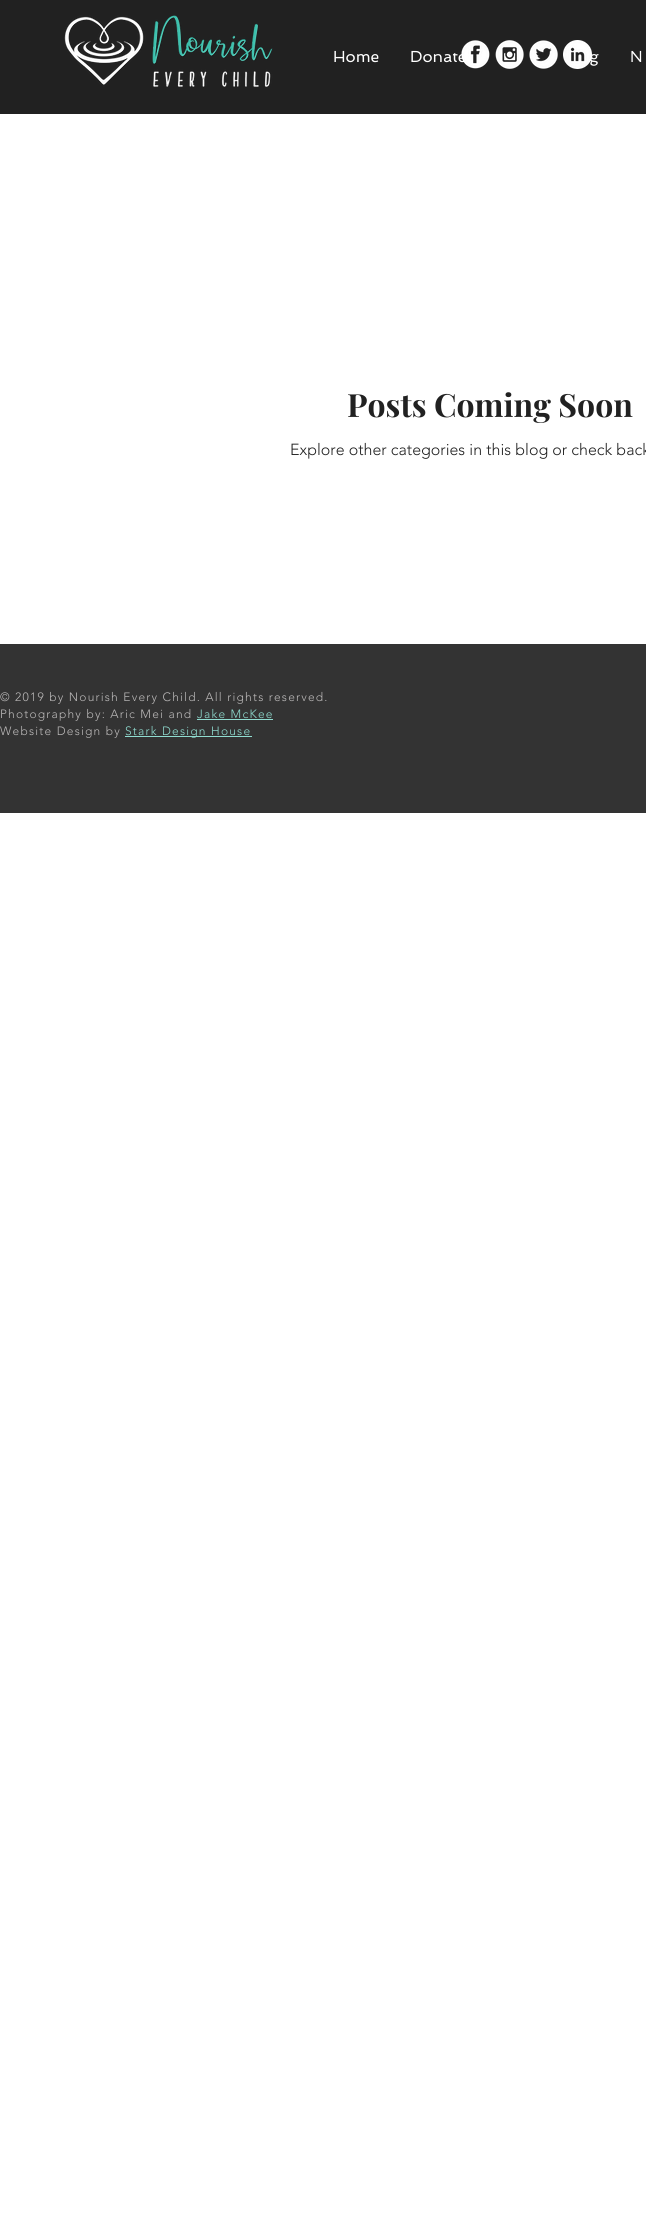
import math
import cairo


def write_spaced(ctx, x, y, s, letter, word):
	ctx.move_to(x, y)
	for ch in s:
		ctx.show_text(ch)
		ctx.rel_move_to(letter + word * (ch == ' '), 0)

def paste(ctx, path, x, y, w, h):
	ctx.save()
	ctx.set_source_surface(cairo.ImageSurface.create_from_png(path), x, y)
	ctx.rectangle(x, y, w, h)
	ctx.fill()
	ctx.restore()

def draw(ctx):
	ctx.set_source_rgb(1, 1, 1)
	ctx.paint()
	ctx.set_source_rgb(0.129, 0.129, 0.129)
	ctx.rectangle(0, 0, 646, 114)
	ctx.fill()
	paste(ctx, 'media/1.png', 64, 15, 209, 72)
	ctx.select_font_face('Spinnaker')
	ctx.set_font_size(16)
	ctx.set_source_rgb(1, 1, 1)
	ctx.move_to(410, 62)
	ctx.show_text('Donate')
	paste(ctx, 'media/2.png', 461, 40, 29, 29)
	paste(ctx, 'media/3.png', 495, 40, 29, 29)
	paste(ctx, 'media/4.png', 529, 40, 29, 29)
	ctx.move_to(589, 62)
	ctx.show_text('g')
	paste(ctx, 'media/5.png', 563, 40, 29, 29)
	ctx.move_to(333, 62)
	ctx.show_text('Home')
	ctx.move_to(630, 62)
	ctx.show_text('N')
	ctx.select_font_face('Playfair Display', cairo.FONT_SLANT_NORMAL, cairo.FONT_WEIGHT_BOLD)
	ctx.set_font_size(32)
	ctx.set_source_rgb(0.129, 0.129, 0.129)
	ctx.move_to(347, 417)
	ctx.show_text('Posts Coming Soon')
	ctx.select_font_face('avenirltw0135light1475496 Light')
	ctx.set_font_size(16)
	ctx.move_to(290, 455)
	ctx.show_text('Explore other categories in this blog or check back')
	ctx.set_source_rgb(0.2, 0.2, 0.2)
	ctx.rectangle(0, 644, 646, 169)
	ctx.fill()
	ctx.set_font_size(12)
	ctx.set_source_rgb(0.729, 0.722, 0.722)
	write_spaced(ctx, 0, 701, '© 2019 by Nourish Every Child. All rights reserved.', 1.2, 0)
	write_spaced(ctx, 0, 718, 'Photography by: Aric Mei and', 1.2, 0)
	ctx.set_source_rgb(0.565, 0.867, 0.82)
	write_spaced(ctx, 197, 718, 'Jake McKee', 1.2, 0)
	ctx.rectangle(197, 719, 76, 1)
	ctx.fill()
	ctx.set_source_rgb(0.729, 0.722, 0.722)
	write_spaced(ctx, 0, 735, 'Website Design by', 1.2, 0)
	ctx.set_source_rgb(0.565, 0.867, 0.82)
	ctx.rectangle(125, 736, 127, 1)
	ctx.fill()
	write_spaced(ctx, 125, 735, 'Stark Design House', 1.2, 0)


surface = cairo.ImageSurface(cairo.FORMAT_RGB24, 646, 2223)
ctx = cairo.Context(surface)
options = cairo.FontOptions()
options.set_hint_metrics(cairo.HINT_METRICS_OFF)
options.set_hint_style(cairo.HINT_STYLE_NONE)
ctx.set_font_options(options)
ctx.set_miter_limit(4)
draw(ctx)
surface.write_to_png('image.png')
